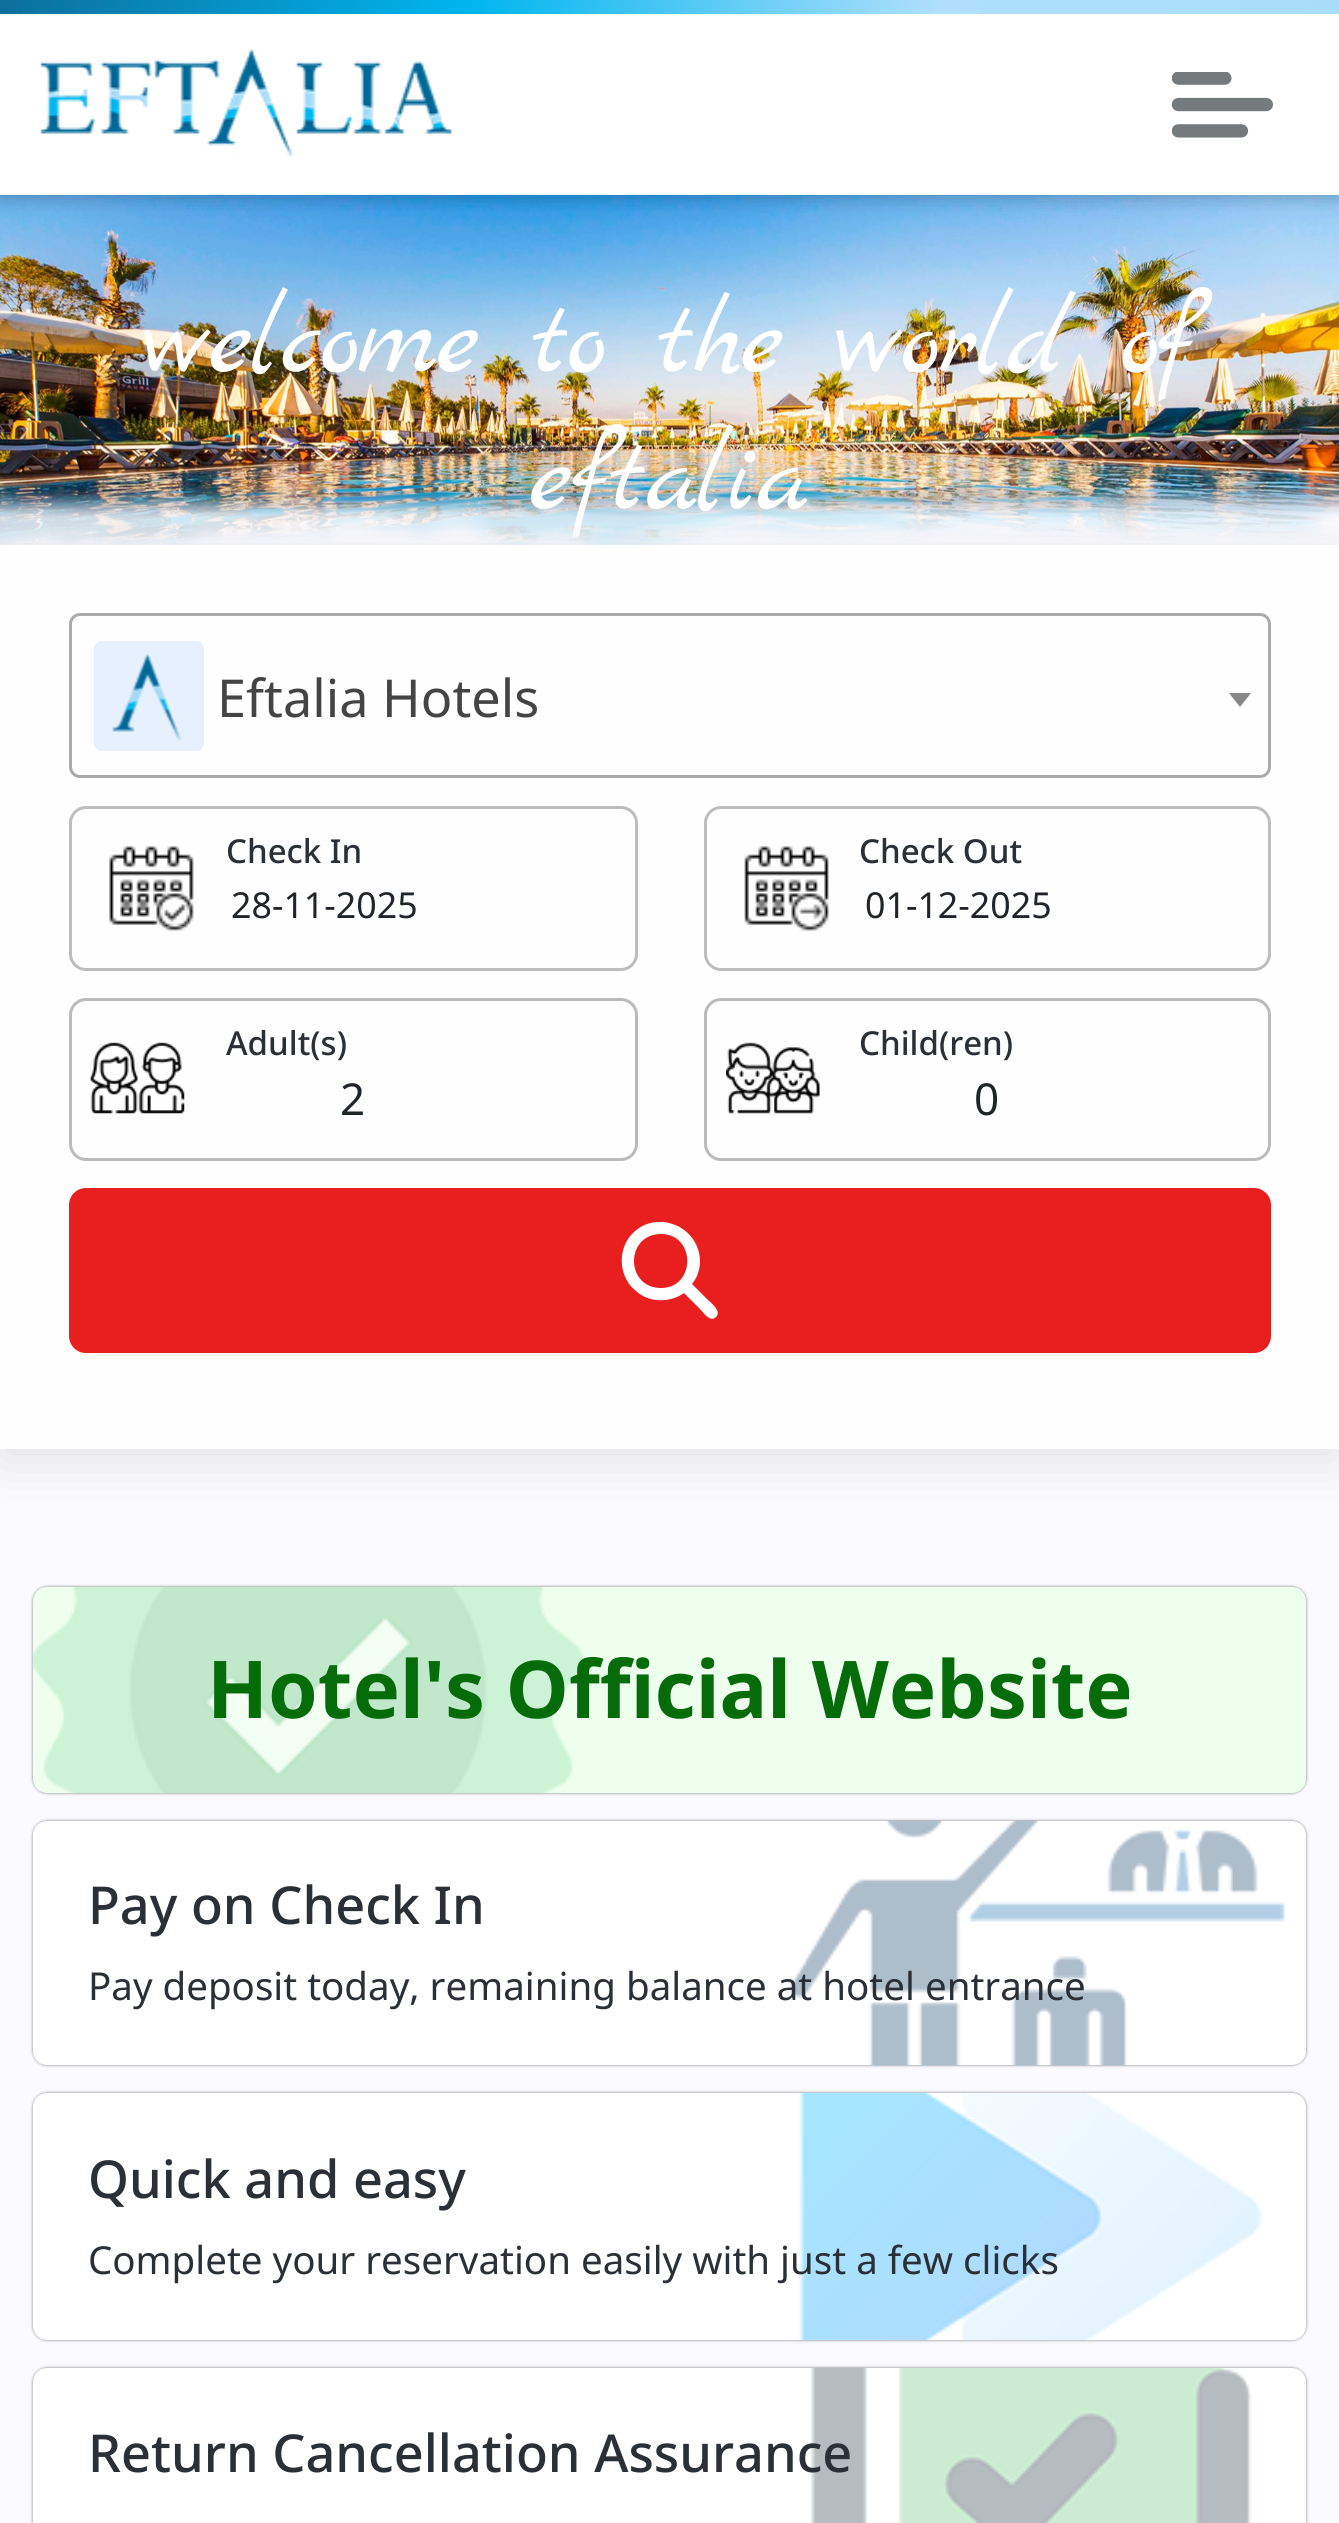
import math
import cairo


def round_path(ctx, x, y, w, h, r):
	ctx.new_sub_path()
	for i, (u, v) in enumerate([(x + w - r, y + h - r), (x + r, y + h - r), (x + r, y + r), (x + w - r, y + r)]):
		ctx.arc(u, v, r, i * math.pi / 2, (i + 1) * math.pi / 2)
	ctx.close_path()

def blur_box(ctx, x, y, w, h, r, blur, alpha):
	ctx.push_group_with_content(cairo.CONTENT_ALPHA)
	ctx.set_operator(cairo.OPERATOR_SOURCE)
	for i in range(15, -16, -2):
		e = blur * i / 6
		if min(w, h) + 2 * e > 0:
			ctx.set_source_rgba(0, 0, 0, alpha * math.erfc((i - 1) / 8.5) / 2)
			round_path(ctx, x - e, y - e, w + 2 * e, h + 2 * e, max(0, min(r + e + blur * .6, min(w, h) / 2 + e)))
			ctx.fill()
	ctx.mask(ctx.pop_group())

def paste(ctx, path, x, y, w, h):
	ctx.save()
	ctx.set_source_surface(cairo.ImageSurface.create_from_png(path), x, y)
	ctx.rectangle(x, y, w, h)
	ctx.fill()
	ctx.restore()

def draw(ctx):
	ctx.set_source_rgb(0.98, 0.98, 1)
	ctx.paint()
	paste(ctx, 'media/3.png', 0, 195, 1339, 350)
	ctx.set_source_rgb(0, 0, 0)
	blur_box(ctx, 0, 3, 1339, 195, 0, 9.5, 0.23)
	gradient = cairo.LinearGradient(12, -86, 1327, 99)
	gradient.add_color_stop_rgba(0, 0.047, 0.435, 0.612, 1)
	gradient.add_color_stop_rgba(0.35, 0, 0.71, 0.933, 1)
	gradient.add_color_stop_rgba(0.7, 0.686, 0.875, 0.984, 1)
	gradient.add_color_stop_rgba(1, 0.663, 0.867, 0.969, 1)
	ctx.set_source(gradient)
	ctx.rectangle(0, 0, 1339, 14)
	ctx.fill()
	ctx.set_source_rgb(1, 1, 1)
	ctx.rectangle(0, 14, 1339, 181)
	ctx.fill()
	paste(ctx, 'media/1.png', 40, 49, 412, 111)
	paste(ctx, 'media/2.png', 1172, 72, 101, 66)
	ctx.select_font_face('Marck Script')
	ctx.set_font_size(110)
	ctx.move_to(144, 372)
	ctx.show_text('welcome to the world of')
	ctx.move_to(530, 509)
	ctx.show_text('eftalia')
	ctx.set_source_rgb(0, 0, 0)
	blur_box(ctx, 0, 556, 1339, 904, 0, 26, 0.1)
	ctx.set_source_rgb(0.996, 0.996, 1)
	ctx.rectangle(0, 545, 1339, 904)
	ctx.fill()
	round_path(ctx, 70.5, 614.5, 1199, 162, 9.5)
	ctx.set_source_rgb(0.667, 0.667, 0.667)
	ctx.set_line_width(3)
	ctx.stroke()
	ctx.set_source_rgb(0.902, 0.941, 1)
	round_path(ctx, 94, 641, 110, 110, 8)
	ctx.fill()
	paste(ctx, 'media/4.png', 112, 654, 69, 87)
	ctx.select_font_face('Noto Sans')
	ctx.set_font_size(52.25)
	ctx.set_source_rgb(0.267, 0.267, 0.267)
	ctx.move_to(217, 717)
	ctx.show_text('Eftalia Hotels')
	ctx.set_source_rgb(0.533, 0.533, 0.533)
	ctx.new_path()
	ctx.move_to(1229, 693)
	ctx.line_to(1251, 693)
	ctx.line_to(1240, 707)
	ctx.close_path()
	ctx.fill()
	paste(ctx, 'media/5.png', 109, 846, 85, 85)
	round_path(ctx, 70.5, 807.5, 566, 162, 15.5)
	ctx.set_source_rgb(0.741, 0.741, 0.741)
	ctx.stroke()
	ctx.select_font_face('Noto Sans Medium')
	ctx.set_font_size(33)
	ctx.set_source_rgb(0.169, 0.184, 0.212)
	ctx.move_to(226, 863)
	ctx.show_text('Check In')
	ctx.select_font_face('Noto Sans')
	ctx.set_font_size(35.75)
	ctx.set_source_rgb(0.129, 0.145, 0.161)
	ctx.move_to(231, 918)
	ctx.show_text('28-11-2025')
	paste(ctx, 'media/6.png', 744, 846, 85, 85)
	round_path(ctx, 705.5, 807.5, 564, 162, 15.5)
	ctx.set_source_rgb(0.741, 0.741, 0.741)
	ctx.stroke()
	ctx.select_font_face('Noto Sans Medium')
	ctx.set_font_size(33)
	ctx.set_source_rgb(0.169, 0.184, 0.212)
	ctx.move_to(859, 863)
	ctx.show_text('Check Out')
	ctx.select_font_face('Noto Sans')
	ctx.set_font_size(35.75)
	ctx.set_source_rgb(0.129, 0.145, 0.161)
	ctx.move_to(865, 918)
	ctx.show_text('01-12-2025')
	paste(ctx, 'media/7.png', 90, 1042, 95, 72)
	round_path(ctx, 70.5, 999.5, 566, 160, 15.5)
	ctx.set_source_rgb(0.733, 0.733, 0.733)
	ctx.stroke()
	ctx.select_font_face('Noto Sans Medium')
	ctx.set_font_size(33)
	ctx.set_source_rgb(0.169, 0.184, 0.212)
	ctx.move_to(226, 1055)
	ctx.show_text('Adult(s)')
	ctx.select_font_face('Noto Sans')
	ctx.set_font_size(44)
	ctx.set_source_rgb(0.129, 0.145, 0.161)
	ctx.move_to(340, 1115)
	ctx.show_text('2')
	paste(ctx, 'media/8.png', 726, 1042, 94, 72)
	round_path(ctx, 705.5, 999.5, 564, 160, 15.5)
	ctx.set_source_rgb(0.733, 0.733, 0.733)
	ctx.stroke()
	ctx.select_font_face('Noto Sans Medium')
	ctx.set_font_size(33)
	ctx.set_source_rgb(0.169, 0.184, 0.212)
	ctx.move_to(859, 1055)
	ctx.show_text('Child(ren)')
	ctx.select_font_face('Noto Sans')
	ctx.set_font_size(44)
	ctx.set_source_rgb(0.129, 0.145, 0.161)
	ctx.move_to(974, 1115)
	ctx.show_text('0')
	ctx.set_source_rgb(0.914, 0.118, 0.118)
	round_path(ctx, 69, 1188, 1202, 165, 17)
	ctx.fill()
	ctx.set_source_rgb(1, 1, 1)
	ctx.new_path()
	ctx.move_to(700, 1261)
	ctx.curve_to(700, 1270, 697, 1278, 692, 1284)
	ctx.line_to(708, 1300)
	ctx.curve_to(711, 1303, 722, 1311, 716, 1317)
	ctx.curve_to(710, 1323, 703, 1312, 700, 1309)
	ctx.line_to(684, 1293)
	ctx.curve_to(670, 1303, 649, 1303, 636, 1291)
	ctx.curve_to(628, 1285, 623, 1275, 622, 1265)
	ctx.curve_to(621, 1256, 623, 1247, 628, 1239)
	ctx.curve_to(650, 1207, 699, 1223, 700, 1261)
	ctx.close_path()
	ctx.move_to(661, 1288)
	ctx.curve_to(696, 1288, 696, 1234, 661, 1234)
	ctx.curve_to(625, 1234, 625, 1288, 661, 1288)
	ctx.close_path()
	ctx.fill()
	ctx.set_source_rgb(0.2, 0.2, 0.2)
	blur_box(ctx, 33, 1587, 1273, 206, 14, 1.5, 0.62)
	ctx.set_source_rgb(0.933, 1, 0.933)
	round_path(ctx, 33, 1587, 1273, 206, 14)
	ctx.fill()
	paste(ctx, 'media/9.png', 33, 1587, 550, 206)
	ctx.select_font_face('Noto Sans', cairo.FONT_SLANT_NORMAL, cairo.FONT_WEIGHT_BOLD)
	ctx.set_font_size(79.75)
	ctx.set_source_rgb(0.02, 0.424, 0.039)
	ctx.move_to(207, 1718)
	ctx.show_text('Hotel\'s Official Website')
	ctx.set_source_rgb(0.2, 0.2, 0.2)
	blur_box(ctx, 33, 1821, 1273, 244, 14, 1.5, 0.62)
	ctx.set_source_rgb(1, 1, 1)
	round_path(ctx, 33, 1821, 1273, 244, 14)
	ctx.fill()
	paste(ctx, 'media/10.png', 788, 1820, 497, 246)
	ctx.select_font_face('Noto Sans Medium')
	ctx.set_font_size(52.25)
	ctx.set_source_rgb(0.169, 0.184, 0.212)
	ctx.move_to(88, 1924)
	ctx.show_text('Pay on Check In')
	ctx.select_font_face('Noto Sans')
	ctx.set_font_size(38.5)
	ctx.move_to(88, 2000)
	ctx.show_text('Pay deposit today, remaining balance at hotel entrance')
	ctx.set_source_rgb(0.2, 0.2, 0.2)
	blur_box(ctx, 33, 2093, 1273, 247, 14, 1.5, 0.62)
	ctx.set_source_rgb(1, 1, 1)
	round_path(ctx, 33, 2093, 1273, 247, 14)
	ctx.fill()
	paste(ctx, 'media/11.png', 799, 2092, 464, 249)
	ctx.select_font_face('Noto Sans Medium')
	ctx.set_font_size(52.25)
	ctx.set_source_rgb(0.169, 0.184, 0.212)
	ctx.move_to(88, 2198)
	ctx.show_text('Quick and easy')
	ctx.select_font_face('Noto Sans')
	ctx.set_font_size(38.5)
	ctx.move_to(88, 2274)
	ctx.show_text('Complete your reservation easily with just a few clicks')
	ctx.set_source_rgb(0.2, 0.2, 0.2)
	blur_box(ctx, 33, 2368, 1273, 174, 14, 1.5, 0.62)
	ctx.set_source_rgb(1, 1, 1)
	round_path(ctx, 33, 2368, 1273, 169, 14)
	ctx.fill()
	paste(ctx, 'media/12.png', 810, 2367, 442, 156)
	ctx.select_font_face('Noto Sans Medium')
	ctx.set_font_size(52.25)
	ctx.set_source_rgb(0.169, 0.184, 0.212)
	ctx.move_to(88, 2472)
	ctx.show_text('Return Cancellation Assurance')


surface = cairo.ImageSurface(cairo.FORMAT_RGB24, 1339, 2523)
ctx = cairo.Context(surface)
options = cairo.FontOptions()
options.set_hint_metrics(cairo.HINT_METRICS_OFF)
options.set_hint_style(cairo.HINT_STYLE_NONE)
ctx.set_font_options(options)
ctx.set_miter_limit(4)
draw(ctx)
surface.write_to_png('image.png')
